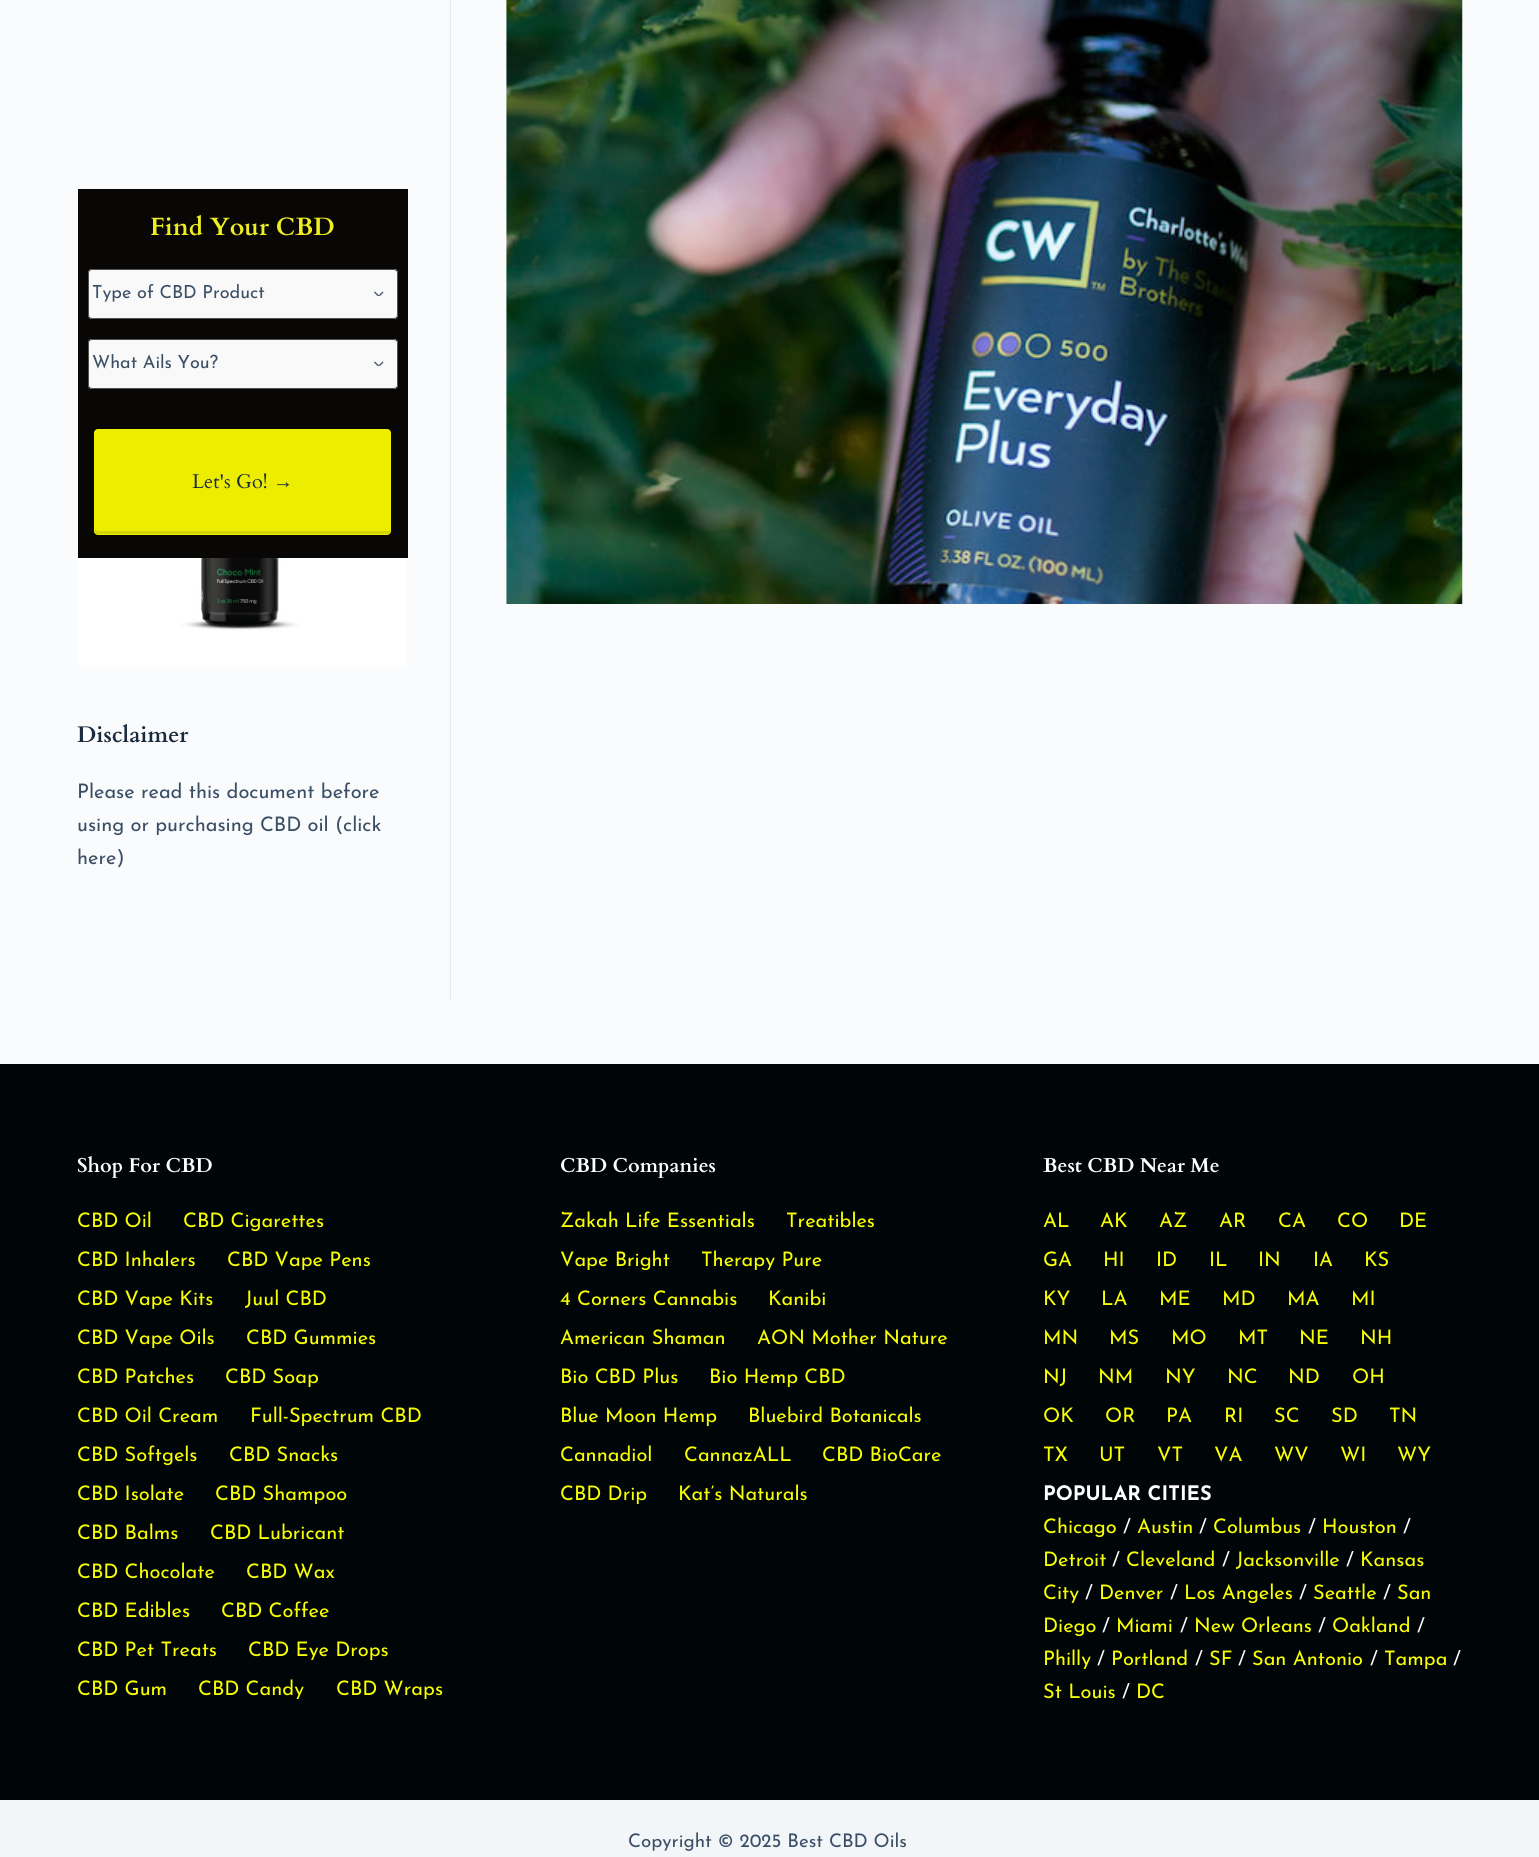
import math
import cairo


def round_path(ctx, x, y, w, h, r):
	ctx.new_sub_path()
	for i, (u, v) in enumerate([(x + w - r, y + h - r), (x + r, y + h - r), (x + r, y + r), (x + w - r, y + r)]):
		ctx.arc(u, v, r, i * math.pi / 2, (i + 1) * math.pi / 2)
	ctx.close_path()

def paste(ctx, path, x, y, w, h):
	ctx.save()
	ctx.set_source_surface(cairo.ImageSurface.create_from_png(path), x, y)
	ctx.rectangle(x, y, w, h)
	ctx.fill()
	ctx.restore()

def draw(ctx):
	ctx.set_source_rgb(0.98, 0.984, 0.988)
	ctx.paint()
	ctx.set_source_rgb(0.039, 0.024, 0.027)
	ctx.rectangle(78, 189, 330, 369)
	ctx.fill()
	ctx.select_font_face('Cardo', cairo.FONT_SLANT_NORMAL, cairo.FONT_WEIGHT_BOLD)
	ctx.set_font_size(25)
	ctx.set_source_rgb(0.933, 0.933, 0.133)
	ctx.move_to(150, 235)
	ctx.show_text('Find Your CBD')
	ctx.set_source_rgb(0.976, 0.976, 0.976)
	round_path(ctx, 88, 269, 310, 50, 4)
	ctx.fill()
	paste(ctx, 'media/1.png', 374, 291, 10, 5)
	round_path(ctx, 88.5, 269.5, 309, 49, 3.5)
	ctx.set_source_rgb(0.318, 0.318, 0.318)
	ctx.set_line_width(1)
	ctx.stroke()
	ctx.select_font_face('Josefin Sans')
	ctx.set_font_size(18)
	ctx.set_source_rgb(0.227, 0.31, 0.4)
	ctx.move_to(92, 298)
	ctx.show_text('Type of CBD Product')
	ctx.set_source_rgb(0.976, 0.976, 0.976)
	round_path(ctx, 88, 339, 310, 50, 4)
	ctx.fill()
	paste(ctx, 'media/1.png', 374, 361, 10, 5)
	round_path(ctx, 88.5, 339.5, 309, 49, 3.5)
	ctx.set_source_rgb(0.318, 0.318, 0.318)
	ctx.stroke()
	ctx.set_source_rgb(0.227, 0.31, 0.4)
	ctx.move_to(92, 368)
	ctx.show_text('What Ails You?')
	ctx.set_source_rgb(0.929, 0.929, 0)
	round_path(ctx, 94, 429, 297, 106, 4)
	ctx.fill()
	ctx.set_source_rgb(0.835, 0.835, 0)
	ctx.new_path()
	ctx.move_to(95, 528)
	ctx.curve_to(95, 530, 94, 534, 98, 534)
	ctx.line_to(388, 534)
	ctx.curve_to(391, 534, 390, 530, 390, 528)
	ctx.curve_to(390, 530, 389, 531, 388, 531)
	ctx.line_to(98, 531)
	ctx.curve_to(96, 531, 95, 530, 95, 528)
	ctx.close_path()
	ctx.fill()
	ctx.select_font_face('Cardo')
	ctx.set_font_size(20)
	ctx.set_source_rgb(0.098, 0.165, 0.239)
	ctx.move_to(192, 488)
	ctx.show_text('Let\'s Go!')
	ctx.select_font_face('Liberation Sans')
	ctx.move_to(273, 488)
	ctx.show_text('→')
	paste(ctx, 'media/2.png', 78, 558, 329, 109)
	ctx.select_font_face('Cardo', cairo.FONT_SLANT_NORMAL, cairo.FONT_WEIGHT_BOLD)
	ctx.set_font_size(22.5)
	ctx.move_to(77, 742)
	ctx.show_text('Disclaimer')
	ctx.select_font_face('Josefin Sans')
	ctx.set_font_size(20)
	ctx.set_source_rgb(0.227, 0.31, 0.4)
	for x, y, s in [
		(77, 798, 'Please read this document before'),
		(77, 831, 'using or purchasing CBD oil (click'),
		(77, 864, 'here)'),
	]:
		ctx.move_to(x, y)
		ctx.show_text(s)
	ctx.set_source_rgb(0.898, 0.914, 0.933)
	ctx.rectangle(450, 0, 1, 1001)
	ctx.fill()
	paste(ctx, 'media/3.png', 506, 0, 957, 604)
	ctx.set_source_rgb(0.949, 0.961, 0.969)
	ctx.rectangle(0, 1800, 1539, 57)
	ctx.fill()
	ctx.set_source_rgb(0, 0.02, 0.031)
	ctx.rectangle(0, 1064, 1539, 736)
	ctx.fill()
	ctx.select_font_face('Cardo', cairo.FONT_SLANT_NORMAL, cairo.FONT_WEIGHT_BOLD)
	ctx.set_source_rgb(1, 1, 1)
	ctx.move_to(77, 1172)
	ctx.show_text('Shop For CBD')
	ctx.select_font_face('Josefin Sans')
	ctx.set_source_rgb(0.969, 1, 0)
	for x, y, s in [
		(77, 1227, 'CBD Oil'),
		(183, 1227, 'CBD Cigarettes'),
		(77, 1266, 'CBD Inhalers'),
		(227, 1266, 'CBD Vape Pens'),
		(77, 1305, 'CBD Vape Kits'),
		(245, 1305, 'Juul CBD'),
		(77, 1344, 'CBD Vape Oils'),
		(246, 1344, 'CBD Gummies'),
		(77, 1383, 'CBD Patches'),
		(225, 1383, 'CBD Soap'),
		(77, 1422, 'CBD Oil Cream'),
		(250, 1422, 'Full-Spectrum CBD'),
		(77, 1461, 'CBD Softgels'),
		(229, 1461, 'CBD Snacks'),
		(77, 1500, 'CBD Isolate'),
		(215, 1500, 'CBD Shampoo'),
		(77, 1539, 'CBD Balms'),
		(210, 1539, 'CBD Lubricant'),
		(77, 1578, 'CBD Chocolate'),
		(246, 1578, 'CBD Wax'),
		(77, 1617, 'CBD Edibles'),
		(221, 1617, 'CBD Coffee'),
		(77, 1656, 'CBD Pet Treats'),
		(248, 1656, 'CBD Eye Drops'),
		(77, 1695, 'CBD Gum'),
		(198, 1695, 'CBD Candy'),
		(336, 1695, 'CBD Wraps'),
	]:
		ctx.move_to(x, y)
		ctx.show_text(s)
	ctx.select_font_face('Cardo', cairo.FONT_SLANT_NORMAL, cairo.FONT_WEIGHT_BOLD)
	ctx.set_source_rgb(1, 1, 1)
	ctx.move_to(560, 1172)
	ctx.show_text('CBD Companies')
	ctx.select_font_face('Josefin Sans')
	ctx.set_source_rgb(0.969, 1, 0)
	for x, y, s in [
		(560, 1227, 'Zakah Life Essentials'),
		(786, 1227, 'Treatibles'),
		(560, 1266, 'Vape Bright'),
		(701, 1266, 'Therapy Pure'),
		(560, 1305, '4 Corners Cannabis'),
		(768, 1305, 'Kanibi'),
		(560, 1344, 'American Shaman'),
		(757, 1344, 'AON Mother Nature'),
		(560, 1383, 'Bio CBD Plus'),
		(709, 1383, 'Bio Hemp CBD'),
		(560, 1422, 'Blue Moon Hemp'),
		(748, 1422, 'Bluebird Botanicals'),
		(560, 1461, 'Cannadiol'),
		(684, 1461, 'CannazALL'),
		(822, 1461, 'CBD BioCare'),
		(560, 1500, 'CBD Drip'),
		(678, 1500, 'Kat’s Naturals'),
	]:
		ctx.move_to(x, y)
		ctx.show_text(s)
	ctx.select_font_face('Cardo', cairo.FONT_SLANT_NORMAL, cairo.FONT_WEIGHT_BOLD)
	ctx.set_source_rgb(1, 1, 1)
	ctx.move_to(1043, 1172)
	ctx.show_text('Best CBD Near Me')
	ctx.select_font_face('Josefin Sans')
	ctx.set_source_rgb(0.969, 1, 0)
	for x, y, s in [
		(1043, 1227, 'AL'),
		(1100, 1227, 'AK'),
		(1159, 1227, 'AZ'),
		(1219, 1227, 'AR'),
		(1278, 1227, 'CA'),
		(1337, 1227, 'CO'),
		(1399, 1227, 'DE'),
		(1043, 1266, 'GA'),
		(1103, 1266, 'HI'),
		(1156, 1266, 'ID'),
		(1209, 1266, 'IL'),
		(1258, 1266, 'IN'),
		(1313, 1266, 'IA'),
		(1364, 1266, 'KS'),
		(1043, 1305, 'KY'),
		(1101, 1305, 'LA'),
		(1159, 1305, 'ME'),
		(1222, 1305, 'MD'),
		(1287, 1305, 'MA'),
		(1351, 1305, 'MI'),
		(1043, 1344, 'MN'),
		(1109, 1344, 'MS'),
		(1171, 1344, 'MO'),
		(1238, 1344, 'MT'),
		(1299, 1344, 'NE'),
		(1360, 1344, 'NH'),
		(1043, 1383, 'NJ'),
		(1098, 1383, 'NM'),
		(1165, 1383, 'NY'),
		(1227, 1383, 'NC'),
		(1288, 1383, 'ND'),
		(1352, 1383, 'OH'),
		(1043, 1422, 'OK'),
		(1105, 1422, 'OR'),
		(1166, 1422, 'PA'),
		(1224, 1422, 'RI'),
		(1274, 1422, 'SC'),
		(1331, 1422, 'SD'),
		(1389, 1422, 'TN'),
		(1043, 1461, 'TX'),
		(1099, 1461, 'UT'),
		(1157, 1461, 'VT'),
		(1214, 1461, 'VA'),
		(1274, 1461, 'WV'),
		(1340, 1461, 'WI'),
		(1397, 1461, 'WY'),
	]:
		ctx.move_to(x, y)
		ctx.show_text(s)
	ctx.select_font_face('Josefin Sans', cairo.FONT_SLANT_NORMAL, cairo.FONT_WEIGHT_BOLD)
	ctx.set_source_rgb(1, 1, 1)
	ctx.move_to(1043, 1500)
	ctx.show_text('POPULAR CITIES')
	ctx.select_font_face('Josefin Sans')
	ctx.set_source_rgb(0.969, 1, 0)
	ctx.move_to(1043, 1533)
	ctx.show_text('Chicago')
	ctx.set_source_rgb(1, 1, 1)
	ctx.move_to(1123, 1533)
	ctx.show_text('/')
	ctx.set_source_rgb(0.969, 1, 0)
	ctx.move_to(1137, 1533)
	ctx.show_text('Austin')
	ctx.set_source_rgb(1, 1, 1)
	ctx.move_to(1199, 1533)
	ctx.show_text('/')
	ctx.set_source_rgb(0.969, 1, 0)
	ctx.move_to(1213, 1533)
	ctx.show_text('Columbus')
	ctx.set_source_rgb(1, 1, 1)
	ctx.move_to(1308, 1533)
	ctx.show_text('/')
	ctx.set_source_rgb(0.969, 1, 0)
	ctx.move_to(1322, 1533)
	ctx.show_text('Houston')
	ctx.set_source_rgb(1, 1, 1)
	ctx.move_to(1403, 1533)
	ctx.show_text('/')
	ctx.set_source_rgb(0.969, 1, 0)
	ctx.move_to(1043, 1566)
	ctx.show_text('Detroit')
	ctx.set_source_rgb(1, 1, 1)
	ctx.move_to(1112, 1566)
	ctx.show_text('/')
	ctx.set_source_rgb(0.969, 1, 0)
	ctx.move_to(1126, 1566)
	ctx.show_text('Cleveland')
	ctx.set_source_rgb(1, 1, 1)
	ctx.move_to(1222, 1566)
	ctx.show_text('/')
	ctx.set_source_rgb(0.969, 1, 0)
	ctx.move_to(1236, 1566)
	ctx.show_text('Jacksonville')
	ctx.set_source_rgb(1, 1, 1)
	ctx.move_to(1346, 1566)
	ctx.show_text('/')
	ctx.set_source_rgb(0.969, 1, 0)
	ctx.move_to(1360, 1566)
	ctx.show_text('Kansas')
	ctx.move_to(1043, 1599)
	ctx.show_text('City')
	ctx.set_source_rgb(1, 1, 1)
	ctx.move_to(1085, 1599)
	ctx.show_text('/')
	ctx.set_source_rgb(0.969, 1, 0)
	ctx.move_to(1099, 1599)
	ctx.show_text('Denver')
	ctx.set_source_rgb(1, 1, 1)
	ctx.move_to(1170, 1599)
	ctx.show_text('/')
	ctx.set_source_rgb(0.969, 1, 0)
	ctx.move_to(1184, 1599)
	ctx.show_text('Los Angeles')
	ctx.set_source_rgb(1, 1, 1)
	ctx.move_to(1299, 1599)
	ctx.show_text('/')
	ctx.set_source_rgb(0.969, 1, 0)
	ctx.move_to(1313, 1599)
	ctx.show_text('Seattle')
	ctx.set_source_rgb(1, 1, 1)
	ctx.move_to(1383, 1599)
	ctx.show_text('/')
	ctx.set_source_rgb(0.969, 1, 0)
	ctx.move_to(1397, 1599)
	ctx.show_text('San')
	ctx.move_to(1043, 1632)
	ctx.show_text('Diego')
	ctx.set_source_rgb(1, 1, 1)
	ctx.move_to(1102, 1632)
	ctx.show_text('/')
	ctx.set_source_rgb(0.969, 1, 0)
	ctx.move_to(1116, 1632)
	ctx.show_text('Miami')
	ctx.set_source_rgb(1, 1, 1)
	ctx.move_to(1180, 1632)
	ctx.show_text('/')
	ctx.set_source_rgb(0.969, 1, 0)
	ctx.move_to(1194, 1632)
	ctx.show_text('New Orleans')
	ctx.set_source_rgb(1, 1, 1)
	ctx.move_to(1318, 1632)
	ctx.show_text('/')
	ctx.set_source_rgb(0.969, 1, 0)
	ctx.move_to(1332, 1632)
	ctx.show_text('Oakland')
	ctx.set_source_rgb(1, 1, 1)
	ctx.move_to(1417, 1632)
	ctx.show_text('/')
	ctx.set_source_rgb(0.969, 1, 0)
	ctx.move_to(1043, 1665)
	ctx.show_text('Philly')
	ctx.set_source_rgb(1, 1, 1)
	ctx.move_to(1097, 1665)
	ctx.show_text('/')
	ctx.set_source_rgb(0.969, 1, 0)
	ctx.move_to(1111, 1665)
	ctx.show_text('Portland')
	ctx.set_source_rgb(1, 1, 1)
	ctx.move_to(1195, 1665)
	ctx.show_text('/')
	ctx.set_source_rgb(0.969, 1, 0)
	ctx.move_to(1209, 1665)
	ctx.show_text('SF')
	ctx.set_source_rgb(1, 1, 1)
	ctx.move_to(1238, 1665)
	ctx.show_text('/')
	ctx.set_source_rgb(0.969, 1, 0)
	ctx.move_to(1252, 1665)
	ctx.show_text('San Antonio')
	ctx.set_source_rgb(1, 1, 1)
	ctx.move_to(1370, 1665)
	ctx.show_text('/')
	ctx.set_source_rgb(0.969, 1, 0)
	ctx.move_to(1384, 1665)
	ctx.show_text('Tampa')
	ctx.set_source_rgb(1, 1, 1)
	ctx.move_to(1453, 1665)
	ctx.show_text('/')
	ctx.set_source_rgb(0.969, 1, 0)
	ctx.move_to(1043, 1698)
	ctx.show_text('St Louis')
	ctx.set_source_rgb(1, 1, 1)
	ctx.move_to(1122, 1698)
	ctx.show_text('/')
	ctx.set_source_rgb(0.969, 1, 0)
	ctx.move_to(1136, 1698)
	ctx.show_text('DC')
	ctx.set_font_size(18.75)
	ctx.set_source_rgb(0.227, 0.31, 0.4)
	ctx.move_to(628, 1847)
	ctx.show_text('Copyright © 2025 Best CBD Oils')


surface = cairo.ImageSurface(cairo.FORMAT_RGB24, 1539, 1857)
ctx = cairo.Context(surface)
options = cairo.FontOptions()
options.set_hint_metrics(cairo.HINT_METRICS_OFF)
options.set_hint_style(cairo.HINT_STYLE_NONE)
ctx.set_font_options(options)
ctx.set_miter_limit(4)
draw(ctx)
surface.write_to_png('image.png')
